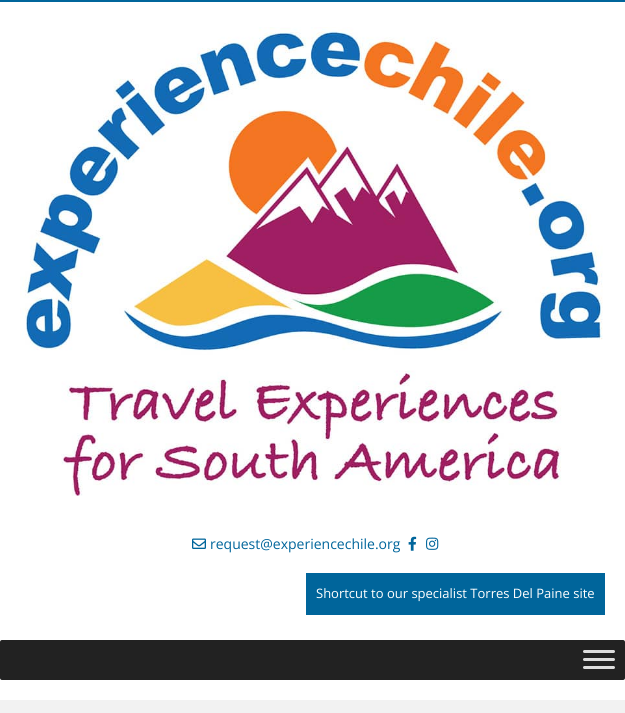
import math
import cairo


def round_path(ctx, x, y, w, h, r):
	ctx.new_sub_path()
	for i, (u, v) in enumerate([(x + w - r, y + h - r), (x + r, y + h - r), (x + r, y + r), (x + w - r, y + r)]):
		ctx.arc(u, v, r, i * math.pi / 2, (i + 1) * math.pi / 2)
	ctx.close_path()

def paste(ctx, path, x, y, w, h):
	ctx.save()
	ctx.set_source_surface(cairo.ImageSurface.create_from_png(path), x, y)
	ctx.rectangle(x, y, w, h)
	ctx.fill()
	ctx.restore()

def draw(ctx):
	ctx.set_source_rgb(1, 1, 1)
	ctx.paint()
	ctx.set_source_rgb(0, 0.396, 0.608)
	ctx.rectangle(0, 0, 625, 2)
	ctx.fill()
	paste(ctx, 'media/1.png', 20, 27, 583, 469)
	paste(ctx, 'media/2.png', 192, 538, 14, 11)
	ctx.select_font_face('Open Sans')
	ctx.set_font_size(14)
	ctx.move_to(210, 549)
	ctx.show_text('request@experiencechile.org')
	paste(ctx, 'media/3.png', 408, 536, 9, 15)
	paste(ctx, 'media/4.png', 426, 537, 13, 13)
	ctx.rectangle(306, 573, 299, 42)
	ctx.fill()
	ctx.set_font_size(13)
	ctx.set_source_rgb(1, 1, 1)
	ctx.move_to(316, 598)
	ctx.show_text('Shortcut to our specialist Torres Del Paine site')
	ctx.set_source_rgb(0.133, 0.133, 0.133)
	round_path(ctx, 0, 640, 625, 40, 2)
	ctx.fill()
	ctx.set_source_rgb(0.867, 0.867, 0.867)
	round_path(ctx, 583, 650, 32, 3, 1.5)
	ctx.fill()
	round_path(ctx, 583, 658, 32, 3, 1.5)
	ctx.fill()
	round_path(ctx, 583, 666, 32, 3, 1.5)
	ctx.fill()
	ctx.set_source_rgb(0.949, 0.949, 0.949)
	ctx.rectangle(0, 700, 625, 13)
	ctx.fill()


surface = cairo.ImageSurface(cairo.FORMAT_RGB24, 625, 713)
ctx = cairo.Context(surface)
options = cairo.FontOptions()
options.set_hint_metrics(cairo.HINT_METRICS_OFF)
options.set_hint_style(cairo.HINT_STYLE_NONE)
ctx.set_font_options(options)
ctx.set_miter_limit(4)
draw(ctx)
surface.write_to_png('image.png')
